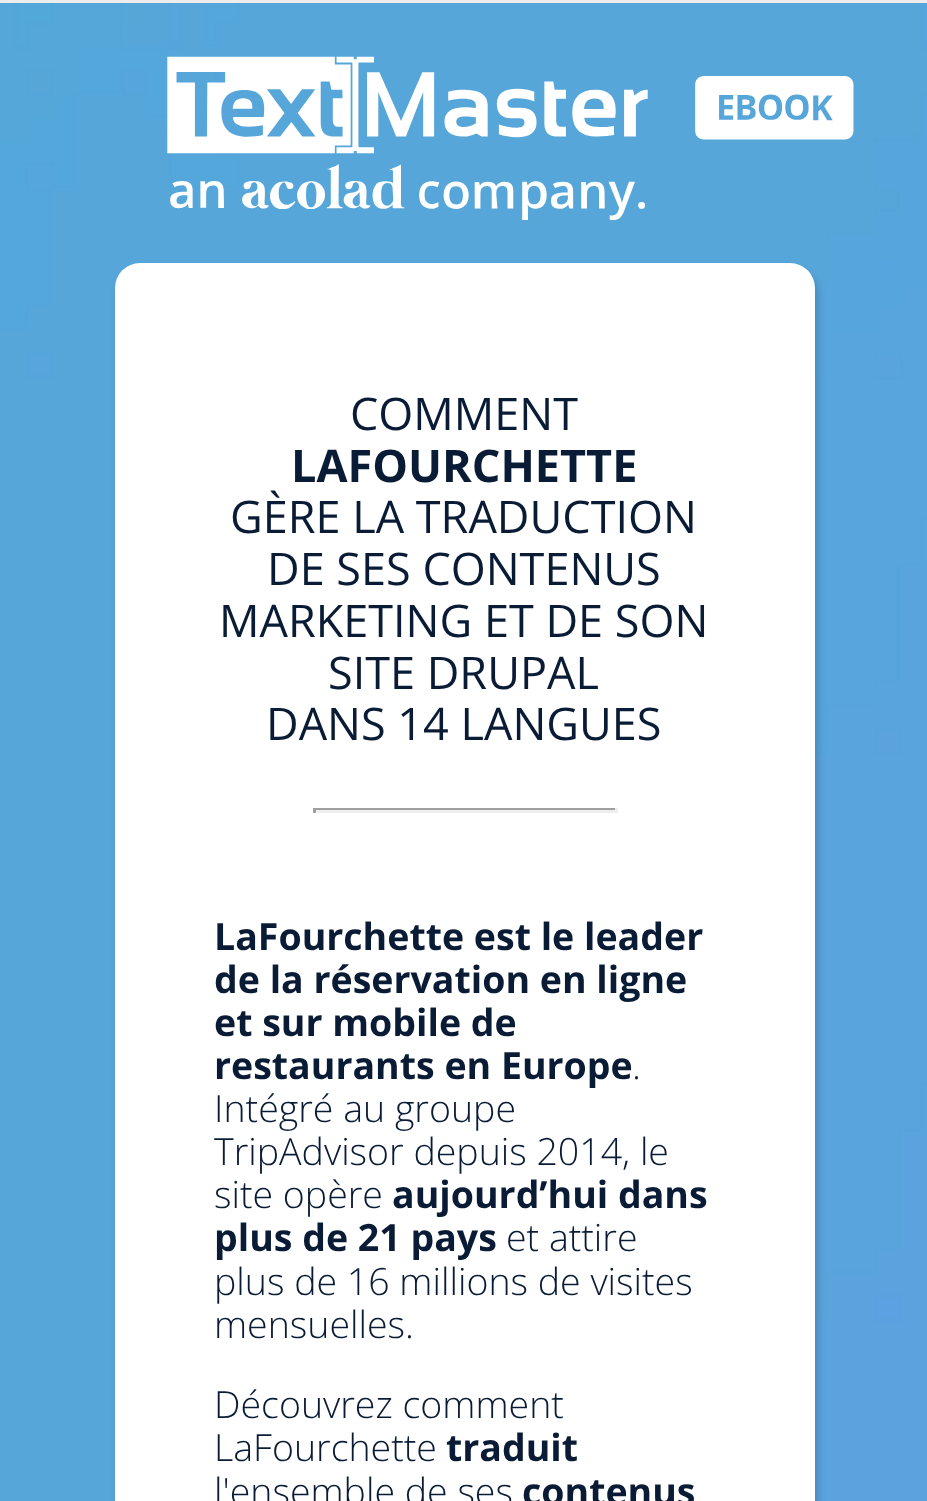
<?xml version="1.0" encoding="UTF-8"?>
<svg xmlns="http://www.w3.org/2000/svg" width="927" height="1501">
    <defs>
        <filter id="blur1" x="-50%" y="-200%" width="200%" height="500%"><feGaussianBlur stdDeviation="4"/></filter>
    </defs>
    <rect width="100%" height="100%" fill="#FFFFFF"/>
    <rect x="0" y="0" width="927" height="3" fill="#EDEDED"/>
    <image x="0" y="3" width="927" height="1498" href="img_02.png"/>
    <image x="167" y="56" width="687" height="164" href="img_01.png"/>
    <rect x="118" y="270" width="700" height="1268" rx="25" fill="#000000" fill-opacity="0.18" filter="url(#blur1)"/>
    <rect x="115" y="263" width="700" height="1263" rx="25" fill="#FFFFFF"/>
    <text x="350" y="430" font-family="Open Sans" font-size="45" fill="#0A1C35">COMMENT</text>
    <text x="291" y="482" font-family="Open Sans" font-size="45" font-weight="700" fill="#0A1C35">LAFOURCHETTE</text>
    <text x="230" y="533" font-family="Open Sans" font-size="45" fill="#0A1C35">GÈRE LA TRADUCTION</text>
    <text x="267" y="585" font-family="Open Sans" font-size="45" fill="#0A1C35">DE SES CONTENUS</text>
    <text x="219" y="637" font-family="Open Sans" font-size="45" fill="#0A1C35">MARKETING ET DE SON</text>
    <text x="328" y="689" font-family="Open Sans" font-size="45" fill="#0A1C35">SITE DRUPAL</text>
    <text x="266" y="740" font-family="Open Sans" font-size="45" fill="#0A1C35">DANS 14 LANGUES</text>
    <rect x="313" y="808" width="305" height="2" fill="#9F9F9F"/>
    <rect x="615" y="808" width="3" height="5" fill="#EEEEEE"/>
    <rect x="313" y="810" width="305" height="3" fill="#EEEEEE"/>
    <rect x="313" y="808" width="3" height="5" fill="#9F9F9F"/>
    <text font-family="Open Sans" font-size="37.5" font-weight="700" fill="#0A1C35">
        <tspan x="214" y="950">LaFourchette est le leader</tspan>
        <tspan x="214" y="993">de la réservation en ligne</tspan>
        <tspan x="214" y="1036">et sur mobile de</tspan>
        <tspan x="214" y="1079">restaurants en Europe</tspan>
    </text>
    <text x="632" y="1079" font-family="Open Sans" font-size="37.5" font-weight="300" fill="#0A1C35">.</text>
    <text font-family="Open Sans" font-size="37.5" font-weight="300" fill="#0A1C35">
        <tspan x="214" y="1122">Intégré au groupe</tspan>
        <tspan x="214" y="1165">TripAdvisor depuis 2014, le</tspan>
        <tspan x="214" y="1208">site opère</tspan>
    </text>
    <text x="392" y="1208" font-family="Open Sans" font-size="37.5" font-weight="700" fill="#0A1C35">aujourd’hui dans</text>
    <text x="214" y="1251" font-family="Open Sans" font-size="37.5" font-weight="700" fill="#0A1C35">plus de 21 pays</text>
    <text x="506" y="1251" font-family="Open Sans" font-size="37.5" font-weight="300" fill="#0A1C35">et attire</text>
    <text font-family="Open Sans" font-size="37.5" font-weight="300" fill="#0A1C35">
        <tspan x="214" y="1295">plus de 16 millions de visites</tspan>
        <tspan x="214" y="1338">mensuelles.</tspan>
    </text>
    <text font-family="Open Sans" font-size="37.5" font-weight="300" fill="#0A1C35">
        <tspan x="214" y="1418">Découvrez comment</tspan>
        <tspan x="214" y="1461">LaFourchette</tspan>
    </text>
    <text x="446" y="1461" font-family="Open Sans" font-size="37.5" font-weight="700" fill="#0A1C35">traduit</text>
    <text x="214" y="1505" font-family="Open Sans" font-size="37.5" font-weight="300" fill="#0A1C35">l'ensemble de ses</text>
    <text x="522" y="1505" font-family="Open Sans" font-size="37.5" font-weight="700" fill="#0A1C35">contenus</text>
</svg>
